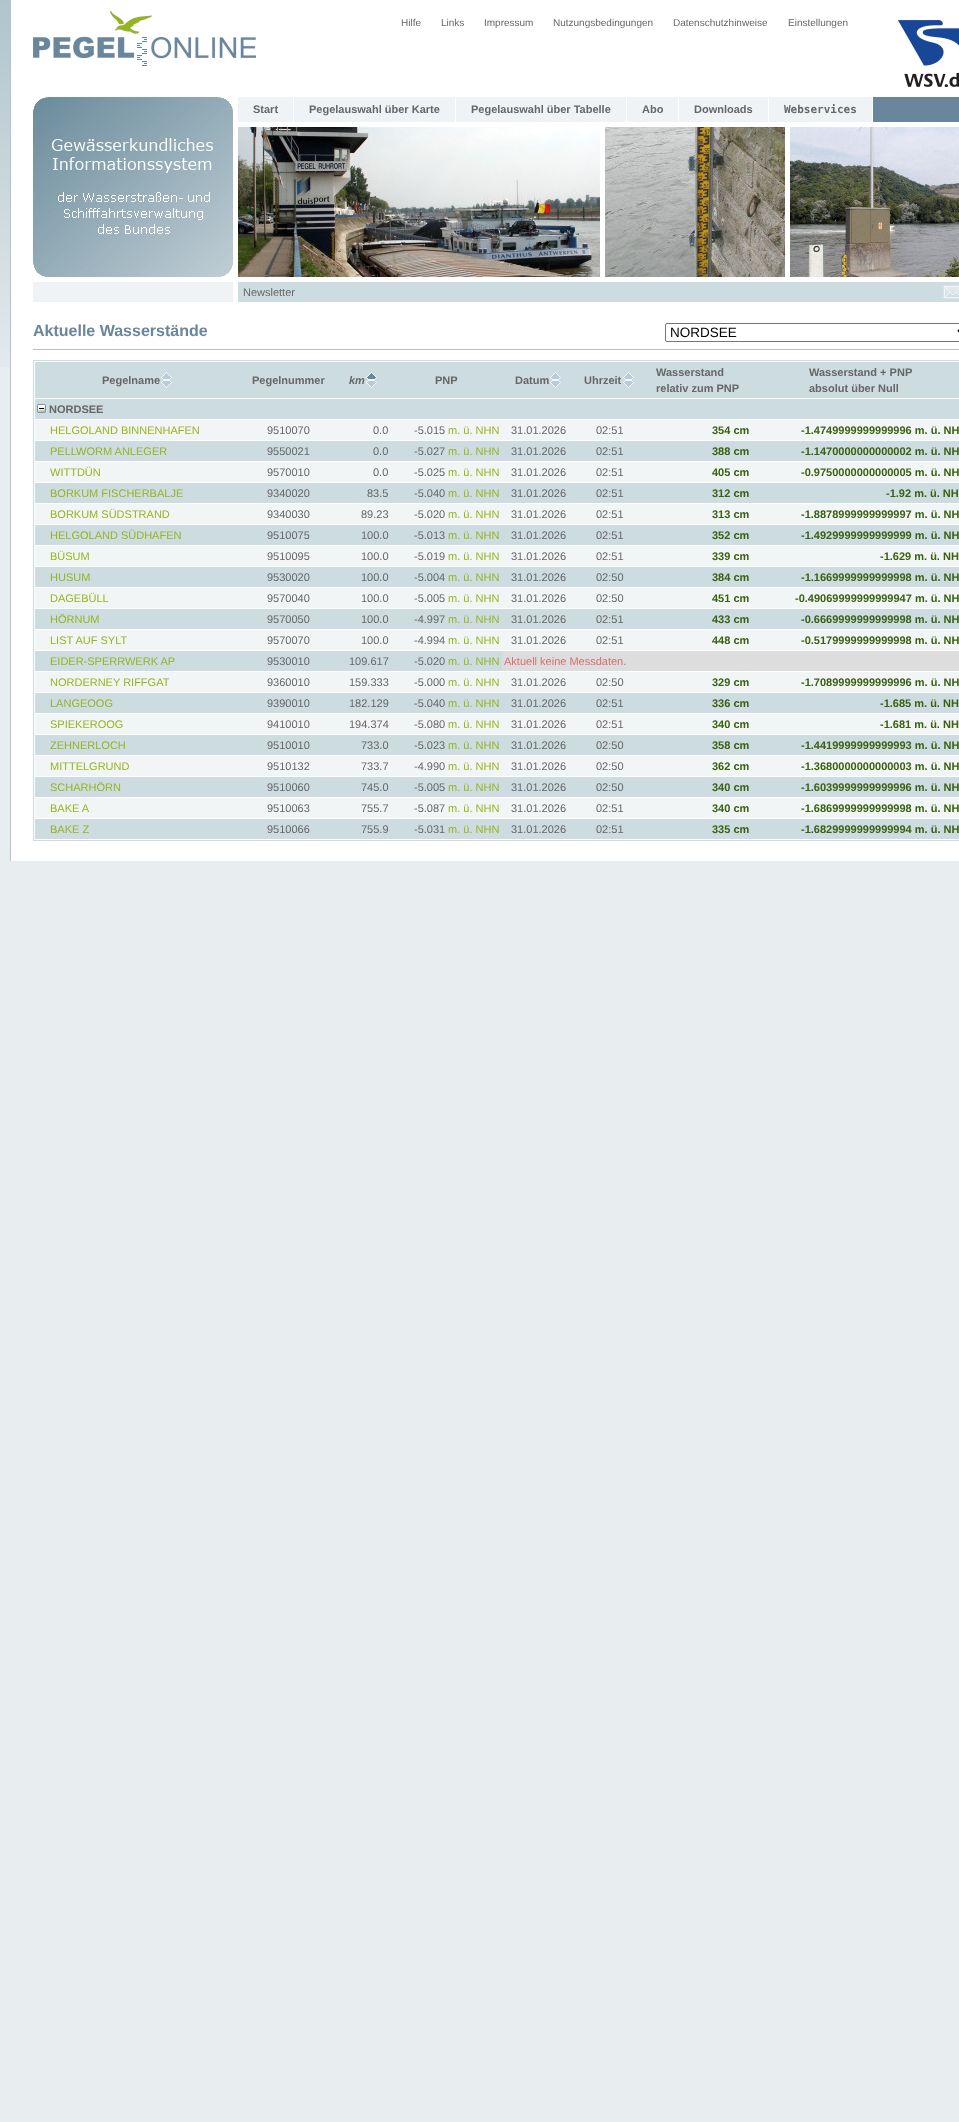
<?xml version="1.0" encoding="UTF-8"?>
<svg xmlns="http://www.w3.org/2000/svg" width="959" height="2122">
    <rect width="100%" height="100%" fill="#E8EDF0"/>
    <image x="0" y="0" width="10" height="367" href="img_01.png"/>
    <rect x="11" y="0" width="948" height="861" fill="#FFFFFF"/>
    <rect x="10" y="0" width="1" height="861" fill="#B0C4CC"/>
    <image x="33" y="10" width="224" height="65" href="img_02.png"/>
    <text x="401" y="26" font-family="Liberation Sans" font-size="10" fill="#666666">Hilfe</text>
    <text x="441" y="26" font-family="Liberation Sans" font-size="10" fill="#666666">Links</text>
    <text x="484" y="26" font-family="Liberation Sans" font-size="10" fill="#666666">Impressum</text>
    <text x="553" y="26" font-family="Liberation Sans" font-size="10" fill="#666666">Nutzungsbedingungen</text>
    <text x="673" y="26" font-family="Liberation Sans" font-size="10" fill="#666666">Datenschutzhinweise</text>
    <text x="788" y="26" font-family="Liberation Sans" font-size="10" fill="#666666">Einstellungen</text>
    <image x="898" y="20" width="61" height="67" href="img_03.png"/>
    <image x="33" y="97" width="200" height="180" href="img_04.png"/>
    <rect x="873" y="97" width="86" height="25" fill="#6A869D"/>
    <rect x="238" y="97" width="55" height="25" fill="#EFF3F5"/>
    <text x="253" y="113" font-family="Liberation Sans" font-size="11" font-weight="700" fill="#666666">Start</text>
    <rect x="294" y="97" width="161" height="25" fill="#EFF3F5"/>
    <text x="309" y="113" font-family="Liberation Sans" font-size="11" font-weight="700" fill="#666666">Pegelauswahl über Karte</text>
    <rect x="456" y="97" width="170" height="25" fill="#EFF3F5"/>
    <text x="471" y="113" font-family="Liberation Sans" font-size="11" font-weight="700" fill="#666666">Pegelauswahl über Tabelle</text>
    <rect x="627" y="97" width="51" height="25" fill="#EFF3F5"/>
    <text x="642" y="113" font-family="Liberation Sans" font-size="11" font-weight="700" fill="#666666">Abo</text>
    <rect x="679" y="97" width="89" height="25" fill="#EFF3F5"/>
    <text x="694" y="113" font-family="Liberation Sans" font-size="11" font-weight="700" fill="#666666">Downloads</text>
    <rect x="769" y="97" width="103" height="25" fill="#EFF3F5"/>
    <text x="784" y="113" font-family="DejaVu Sans Mono" font-size="11" font-weight="700" fill="#666666">Webservices</text>
    <image x="238" y="127" width="362" height="150" href="img_05.png"/>
    <image x="605" y="127" width="180" height="150" href="img_06.png"/>
    <image x="790" y="127" width="169" height="150" href="img_07.png"/>
    <rect x="33" y="282" width="200" height="20" fill="#EFF3F5"/>
    <rect x="238" y="282" width="721" height="20" fill="#CDDCE1"/>
    <text x="243" y="296" font-family="Liberation Sans" font-size="11" fill="#666666">Newsletter</text>
    <image x="943" y="285" width="16" height="14" href="img_08.png"/>
    <rect x="33" y="349" width="926" height="1" fill="#BDBDBD"/>
    <text x="33" y="336" font-family="Liberation Sans" font-size="16" font-weight="700" fill="#6A869D">Aktuelle Wasserstände</text>
    <rect x="665.5" y="323.5" width="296" height="18" rx="1.5" fill="none" stroke="#767676"/>
    <path d="M 958 330 L 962 334 L 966 330" fill="none" stroke="#000000" stroke-width="2"/>
    <text x="670" y="337" font-family="Liberation Sans" font-size="13.5" fill="#000000">NORDSEE</text>
    <rect x="33.5" y="360.5" width="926" height="480" fill="none" stroke="#CDDCE1"/>
    <rect x="35" y="362" width="924" height="36" fill="#CDDCE1"/>
    <text x="102" y="384" font-family="Liberation Sans" font-size="11" font-weight="700" fill="#666666">Pegelname</text>
    <image x="161" y="372" width="11" height="8" href="img_09.png"/>
    <image x="161" y="380" width="11" height="8" href="img_10.png"/>
    <text x="252" y="384" font-family="Liberation Sans" font-size="11" font-weight="700" fill="#666666">Pegelnummer</text>
    <text x="349" y="384" font-family="Liberation Sans" font-size="11" font-weight="700" font-style="italic" fill="#666666">km</text>
    <image x="366" y="372" width="11" height="8" href="img_11.png"/>
    <image x="366" y="380" width="11" height="8" href="img_10.png"/>
    <text x="435" y="384" font-family="Liberation Sans" font-size="11" font-weight="700" fill="#666666">PNP</text>
    <text x="515" y="384" font-family="Liberation Sans" font-size="11" font-weight="700" fill="#666666">Datum</text>
    <image x="550" y="372" width="11" height="8" href="img_09.png"/>
    <image x="550" y="380" width="11" height="8" href="img_10.png"/>
    <text x="584" y="384" font-family="Liberation Sans" font-size="11" font-weight="700" fill="#666666">Uhrzeit</text>
    <image x="623" y="372" width="11" height="8" href="img_09.png"/>
    <image x="623" y="380" width="11" height="8" href="img_10.png"/>
    <text font-family="Liberation Sans" font-size="11" font-weight="700" fill="#666666">
        <tspan x="656" y="376">Wasserstand</tspan>
        <tspan x="656" y="392">relativ zum PNP</tspan>
    </text>
    <text font-family="Liberation Sans" font-size="11" font-weight="700" fill="#666666">
        <tspan x="809" y="376">Wasserstand + PNP</tspan>
        <tspan x="809" y="392">absolut über Null</tspan>
    </text>
    <rect x="35" y="399" width="924" height="20" fill="#CDDCE1"/>
    <image x="37" y="404" width="9" height="9" href="img_12.png"/>
    <text x="49" y="413" font-family="Liberation Sans" font-size="11" font-weight="700" fill="#666666">NORDSEE</text>
    <rect x="35" y="420" width="924" height="20" fill="#F2F5F6"/>
    <text x="50" y="434" font-family="Liberation Sans" font-size="11" fill="#96B41E">HELGOLAND BINNENHAFEN</text>
    <text x="267" y="434" font-family="Liberation Sans" font-size="11" fill="#666666">9510070</text>
    <text x="373" y="434" font-family="Liberation Sans" font-size="11" fill="#666666">0.0</text>
    <text x="414" y="434" font-family="Liberation Sans" font-size="11" fill="#666666">-5.015</text>
    <text x="448" y="434" font-family="Liberation Sans" font-size="11" fill="#96B41E">m. ü. NHN</text>
    <text x="511" y="434" font-family="Liberation Sans" font-size="11" fill="#666666">31.01.2026</text>
    <text x="596" y="434" font-family="Liberation Sans" font-size="11" fill="#666666">02:51</text>
    <text x="712" y="434" font-family="Liberation Sans" font-size="11" font-weight="700" fill="#396111">354 cm</text>
    <text x="801" y="434" font-family="Liberation Sans" font-size="11" font-weight="700" fill="#396111">-1.4749999999999996 m. ü. NH</text>
    <rect x="35" y="441" width="924" height="20" fill="#CDDCE1"/>
    <text x="50" y="455" font-family="Liberation Sans" font-size="11" fill="#96B41E">PELLWORM ANLEGER</text>
    <text x="267" y="455" font-family="Liberation Sans" font-size="11" fill="#666666">9550021</text>
    <text x="373" y="455" font-family="Liberation Sans" font-size="11" fill="#666666">0.0</text>
    <text x="414" y="455" font-family="Liberation Sans" font-size="11" fill="#666666">-5.027</text>
    <text x="448" y="455" font-family="Liberation Sans" font-size="11" fill="#96B41E">m. ü. NHN</text>
    <text x="511" y="455" font-family="Liberation Sans" font-size="11" fill="#666666">31.01.2026</text>
    <text x="596" y="455" font-family="Liberation Sans" font-size="11" fill="#666666">02:51</text>
    <text x="712" y="455" font-family="Liberation Sans" font-size="11" font-weight="700" fill="#396111">388 cm</text>
    <text x="801" y="455" font-family="Liberation Sans" font-size="11" font-weight="700" fill="#396111">-1.1470000000000002 m. ü. NH</text>
    <rect x="35" y="462" width="924" height="20" fill="#F2F5F6"/>
    <text x="50" y="476" font-family="Liberation Sans" font-size="11" fill="#96B41E">WITTDÜN</text>
    <text x="267" y="476" font-family="Liberation Sans" font-size="11" fill="#666666">9570010</text>
    <text x="373" y="476" font-family="Liberation Sans" font-size="11" fill="#666666">0.0</text>
    <text x="414" y="476" font-family="Liberation Sans" font-size="11" fill="#666666">-5.025</text>
    <text x="448" y="476" font-family="Liberation Sans" font-size="11" fill="#96B41E">m. ü. NHN</text>
    <text x="511" y="476" font-family="Liberation Sans" font-size="11" fill="#666666">31.01.2026</text>
    <text x="596" y="476" font-family="Liberation Sans" font-size="11" fill="#666666">02:51</text>
    <text x="712" y="476" font-family="Liberation Sans" font-size="11" font-weight="700" fill="#396111">405 cm</text>
    <text x="801" y="476" font-family="Liberation Sans" font-size="11" font-weight="700" fill="#396111">-0.9750000000000005 m. ü. NH</text>
    <rect x="35" y="483" width="924" height="20" fill="#CDDCE1"/>
    <text x="50" y="497" font-family="Liberation Sans" font-size="11" fill="#96B41E">BORKUM FISCHERBALJE</text>
    <text x="267" y="497" font-family="Liberation Sans" font-size="11" fill="#666666">9340020</text>
    <text x="367" y="497" font-family="Liberation Sans" font-size="11" fill="#666666">83.5</text>
    <text x="414" y="497" font-family="Liberation Sans" font-size="11" fill="#666666">-5.040</text>
    <text x="448" y="497" font-family="Liberation Sans" font-size="11" fill="#96B41E">m. ü. NHN</text>
    <text x="511" y="497" font-family="Liberation Sans" font-size="11" fill="#666666">31.01.2026</text>
    <text x="596" y="497" font-family="Liberation Sans" font-size="11" fill="#666666">02:51</text>
    <text x="712" y="497" font-family="Liberation Sans" font-size="11" font-weight="700" fill="#396111">312 cm</text>
    <text x="886" y="497" font-family="Liberation Sans" font-size="11" font-weight="700" fill="#396111">-1.92 m. ü. NH</text>
    <rect x="35" y="504" width="924" height="20" fill="#F2F5F6"/>
    <text x="50" y="518" font-family="Liberation Sans" font-size="11" fill="#96B41E">BORKUM SÜDSTRAND</text>
    <text x="267" y="518" font-family="Liberation Sans" font-size="11" fill="#666666">9340030</text>
    <text x="361" y="518" font-family="Liberation Sans" font-size="11" fill="#666666">89.23</text>
    <text x="414" y="518" font-family="Liberation Sans" font-size="11" fill="#666666">-5.020</text>
    <text x="448" y="518" font-family="Liberation Sans" font-size="11" fill="#96B41E">m. ü. NHN</text>
    <text x="511" y="518" font-family="Liberation Sans" font-size="11" fill="#666666">31.01.2026</text>
    <text x="596" y="518" font-family="Liberation Sans" font-size="11" fill="#666666">02:51</text>
    <text x="712" y="518" font-family="Liberation Sans" font-size="11" font-weight="700" fill="#396111">313 cm</text>
    <text x="801" y="518" font-family="Liberation Sans" font-size="11" font-weight="700" fill="#396111">-1.8878999999999997 m. ü. NH</text>
    <rect x="35" y="525" width="924" height="20" fill="#CDDCE1"/>
    <text x="50" y="539" font-family="Liberation Sans" font-size="11" fill="#96B41E">HELGOLAND SÜDHAFEN</text>
    <text x="267" y="539" font-family="Liberation Sans" font-size="11" fill="#666666">9510075</text>
    <text x="361" y="539" font-family="Liberation Sans" font-size="11" fill="#666666">100.0</text>
    <text x="414" y="539" font-family="Liberation Sans" font-size="11" fill="#666666">-5.013</text>
    <text x="448" y="539" font-family="Liberation Sans" font-size="11" fill="#96B41E">m. ü. NHN</text>
    <text x="511" y="539" font-family="Liberation Sans" font-size="11" fill="#666666">31.01.2026</text>
    <text x="596" y="539" font-family="Liberation Sans" font-size="11" fill="#666666">02:51</text>
    <text x="712" y="539" font-family="Liberation Sans" font-size="11" font-weight="700" fill="#396111">352 cm</text>
    <text x="801" y="539" font-family="Liberation Sans" font-size="11" font-weight="700" fill="#396111">-1.4929999999999999 m. ü. NH</text>
    <rect x="35" y="546" width="924" height="20" fill="#F2F5F6"/>
    <text x="50" y="560" font-family="Liberation Sans" font-size="11" fill="#96B41E">BÜSUM</text>
    <text x="267" y="560" font-family="Liberation Sans" font-size="11" fill="#666666">9510095</text>
    <text x="361" y="560" font-family="Liberation Sans" font-size="11" fill="#666666">100.0</text>
    <text x="414" y="560" font-family="Liberation Sans" font-size="11" fill="#666666">-5.019</text>
    <text x="448" y="560" font-family="Liberation Sans" font-size="11" fill="#96B41E">m. ü. NHN</text>
    <text x="511" y="560" font-family="Liberation Sans" font-size="11" fill="#666666">31.01.2026</text>
    <text x="596" y="560" font-family="Liberation Sans" font-size="11" fill="#666666">02:51</text>
    <text x="712" y="560" font-family="Liberation Sans" font-size="11" font-weight="700" fill="#396111">339 cm</text>
    <text x="880" y="560" font-family="Liberation Sans" font-size="11" font-weight="700" fill="#396111">-1.629 m. ü. NH</text>
    <rect x="35" y="567" width="924" height="20" fill="#CDDCE1"/>
    <text x="50" y="581" font-family="Liberation Sans" font-size="11" fill="#96B41E">HUSUM</text>
    <text x="267" y="581" font-family="Liberation Sans" font-size="11" fill="#666666">9530020</text>
    <text x="361" y="581" font-family="Liberation Sans" font-size="11" fill="#666666">100.0</text>
    <text x="414" y="581" font-family="Liberation Sans" font-size="11" fill="#666666">-5.004</text>
    <text x="448" y="581" font-family="Liberation Sans" font-size="11" fill="#96B41E">m. ü. NHN</text>
    <text x="511" y="581" font-family="Liberation Sans" font-size="11" fill="#666666">31.01.2026</text>
    <text x="596" y="581" font-family="Liberation Sans" font-size="11" fill="#666666">02:50</text>
    <text x="712" y="581" font-family="Liberation Sans" font-size="11" font-weight="700" fill="#396111">384 cm</text>
    <text x="801" y="581" font-family="Liberation Sans" font-size="11" font-weight="700" fill="#396111">-1.1669999999999998 m. ü. NH</text>
    <rect x="35" y="588" width="924" height="20" fill="#F2F5F6"/>
    <text x="50" y="602" font-family="Liberation Sans" font-size="11" fill="#96B41E">DAGEBÜLL</text>
    <text x="267" y="602" font-family="Liberation Sans" font-size="11" fill="#666666">9570040</text>
    <text x="361" y="602" font-family="Liberation Sans" font-size="11" fill="#666666">100.0</text>
    <text x="414" y="602" font-family="Liberation Sans" font-size="11" fill="#666666">-5.005</text>
    <text x="448" y="602" font-family="Liberation Sans" font-size="11" fill="#96B41E">m. ü. NHN</text>
    <text x="511" y="602" font-family="Liberation Sans" font-size="11" fill="#666666">31.01.2026</text>
    <text x="596" y="602" font-family="Liberation Sans" font-size="11" fill="#666666">02:50</text>
    <text x="712" y="602" font-family="Liberation Sans" font-size="11" font-weight="700" fill="#396111">451 cm</text>
    <text x="795" y="602" font-family="Liberation Sans" font-size="11" font-weight="700" fill="#396111">-0.49069999999999947 m. ü. NH</text>
    <rect x="35" y="609" width="924" height="20" fill="#CDDCE1"/>
    <text x="50" y="623" font-family="Liberation Sans" font-size="11" fill="#96B41E">HÖRNUM</text>
    <text x="267" y="623" font-family="Liberation Sans" font-size="11" fill="#666666">9570050</text>
    <text x="361" y="623" font-family="Liberation Sans" font-size="11" fill="#666666">100.0</text>
    <text x="414" y="623" font-family="Liberation Sans" font-size="11" fill="#666666">-4.997</text>
    <text x="448" y="623" font-family="Liberation Sans" font-size="11" fill="#96B41E">m. ü. NHN</text>
    <text x="511" y="623" font-family="Liberation Sans" font-size="11" fill="#666666">31.01.2026</text>
    <text x="596" y="623" font-family="Liberation Sans" font-size="11" fill="#666666">02:51</text>
    <text x="712" y="623" font-family="Liberation Sans" font-size="11" font-weight="700" fill="#396111">433 cm</text>
    <text x="801" y="623" font-family="Liberation Sans" font-size="11" font-weight="700" fill="#396111">-0.6669999999999998 m. ü. NH</text>
    <rect x="35" y="630" width="924" height="20" fill="#F2F5F6"/>
    <text x="50" y="644" font-family="Liberation Sans" font-size="11" fill="#96B41E">LIST AUF SYLT</text>
    <text x="267" y="644" font-family="Liberation Sans" font-size="11" fill="#666666">9570070</text>
    <text x="361" y="644" font-family="Liberation Sans" font-size="11" fill="#666666">100.0</text>
    <text x="414" y="644" font-family="Liberation Sans" font-size="11" fill="#666666">-4.994</text>
    <text x="448" y="644" font-family="Liberation Sans" font-size="11" fill="#96B41E">m. ü. NHN</text>
    <text x="511" y="644" font-family="Liberation Sans" font-size="11" fill="#666666">31.01.2026</text>
    <text x="596" y="644" font-family="Liberation Sans" font-size="11" fill="#666666">02:51</text>
    <text x="712" y="644" font-family="Liberation Sans" font-size="11" font-weight="700" fill="#396111">448 cm</text>
    <text x="801" y="644" font-family="Liberation Sans" font-size="11" font-weight="700" fill="#396111">-0.5179999999999998 m. ü. NH</text>
    <rect x="35" y="651" width="467" height="20" fill="#CDDCE1"/>
    <text x="50" y="665" font-family="Liberation Sans" font-size="11" fill="#96B41E">EIDER-SPERRWERK AP</text>
    <text x="267" y="665" font-family="Liberation Sans" font-size="11" fill="#666666">9530010</text>
    <text x="349" y="665" font-family="Liberation Sans" font-size="11" fill="#666666">109.617</text>
    <text x="414" y="665" font-family="Liberation Sans" font-size="11" fill="#666666">-5.020</text>
    <text x="448" y="665" font-family="Liberation Sans" font-size="11" fill="#96B41E">m. ü. NHN</text>
    <rect x="502" y="651" width="457" height="20" fill="#DDDDDD"/>
    <text x="504" y="665" font-family="Liberation Sans" font-size="11" fill="#D66F6F">Aktuell keine Messdaten.</text>
    <rect x="35" y="672" width="924" height="20" fill="#F2F5F6"/>
    <text x="50" y="686" font-family="Liberation Sans" font-size="11" fill="#96B41E">NORDERNEY RIFFGAT</text>
    <text x="267" y="686" font-family="Liberation Sans" font-size="11" fill="#666666">9360010</text>
    <text x="349" y="686" font-family="Liberation Sans" font-size="11" fill="#666666">159.333</text>
    <text x="414" y="686" font-family="Liberation Sans" font-size="11" fill="#666666">-5.000</text>
    <text x="448" y="686" font-family="Liberation Sans" font-size="11" fill="#96B41E">m. ü. NHN</text>
    <text x="511" y="686" font-family="Liberation Sans" font-size="11" fill="#666666">31.01.2026</text>
    <text x="596" y="686" font-family="Liberation Sans" font-size="11" fill="#666666">02:50</text>
    <text x="712" y="686" font-family="Liberation Sans" font-size="11" font-weight="700" fill="#396111">329 cm</text>
    <text x="801" y="686" font-family="Liberation Sans" font-size="11" font-weight="700" fill="#396111">-1.7089999999999996 m. ü. NH</text>
    <rect x="35" y="693" width="924" height="20" fill="#CDDCE1"/>
    <text x="50" y="707" font-family="Liberation Sans" font-size="11" fill="#96B41E">LANGEOOG</text>
    <text x="267" y="707" font-family="Liberation Sans" font-size="11" fill="#666666">9390010</text>
    <text x="349" y="707" font-family="Liberation Sans" font-size="11" fill="#666666">182.129</text>
    <text x="414" y="707" font-family="Liberation Sans" font-size="11" fill="#666666">-5.040</text>
    <text x="448" y="707" font-family="Liberation Sans" font-size="11" fill="#96B41E">m. ü. NHN</text>
    <text x="511" y="707" font-family="Liberation Sans" font-size="11" fill="#666666">31.01.2026</text>
    <text x="596" y="707" font-family="Liberation Sans" font-size="11" fill="#666666">02:51</text>
    <text x="712" y="707" font-family="Liberation Sans" font-size="11" font-weight="700" fill="#396111">336 cm</text>
    <text x="880" y="707" font-family="Liberation Sans" font-size="11" font-weight="700" fill="#396111">-1.685 m. ü. NH</text>
    <rect x="35" y="714" width="924" height="20" fill="#F2F5F6"/>
    <text x="50" y="728" font-family="Liberation Sans" font-size="11" fill="#96B41E">SPIEKEROOG</text>
    <text x="267" y="728" font-family="Liberation Sans" font-size="11" fill="#666666">9410010</text>
    <text x="349" y="728" font-family="Liberation Sans" font-size="11" fill="#666666">194.374</text>
    <text x="414" y="728" font-family="Liberation Sans" font-size="11" fill="#666666">-5.080</text>
    <text x="448" y="728" font-family="Liberation Sans" font-size="11" fill="#96B41E">m. ü. NHN</text>
    <text x="511" y="728" font-family="Liberation Sans" font-size="11" fill="#666666">31.01.2026</text>
    <text x="596" y="728" font-family="Liberation Sans" font-size="11" fill="#666666">02:51</text>
    <text x="712" y="728" font-family="Liberation Sans" font-size="11" font-weight="700" fill="#396111">340 cm</text>
    <text x="880" y="728" font-family="Liberation Sans" font-size="11" font-weight="700" fill="#396111">-1.681 m. ü. NH</text>
    <rect x="35" y="735" width="924" height="20" fill="#CDDCE1"/>
    <text x="50" y="749" font-family="Liberation Sans" font-size="11" fill="#96B41E">ZEHNERLOCH</text>
    <text x="267" y="749" font-family="Liberation Sans" font-size="11" fill="#666666">9510010</text>
    <text x="361" y="749" font-family="Liberation Sans" font-size="11" fill="#666666">733.0</text>
    <text x="414" y="749" font-family="Liberation Sans" font-size="11" fill="#666666">-5.023</text>
    <text x="448" y="749" font-family="Liberation Sans" font-size="11" fill="#96B41E">m. ü. NHN</text>
    <text x="511" y="749" font-family="Liberation Sans" font-size="11" fill="#666666">31.01.2026</text>
    <text x="596" y="749" font-family="Liberation Sans" font-size="11" fill="#666666">02:50</text>
    <text x="712" y="749" font-family="Liberation Sans" font-size="11" font-weight="700" fill="#396111">358 cm</text>
    <text x="801" y="749" font-family="Liberation Sans" font-size="11" font-weight="700" fill="#396111">-1.4419999999999993 m. ü. NH</text>
    <rect x="35" y="756" width="924" height="20" fill="#F2F5F6"/>
    <text x="50" y="770" font-family="Liberation Sans" font-size="11" fill="#96B41E">MITTELGRUND</text>
    <text x="267" y="770" font-family="Liberation Sans" font-size="11" fill="#666666">9510132</text>
    <text x="361" y="770" font-family="Liberation Sans" font-size="11" fill="#666666">733.7</text>
    <text x="414" y="770" font-family="Liberation Sans" font-size="11" fill="#666666">-4.990</text>
    <text x="448" y="770" font-family="Liberation Sans" font-size="11" fill="#96B41E">m. ü. NHN</text>
    <text x="511" y="770" font-family="Liberation Sans" font-size="11" fill="#666666">31.01.2026</text>
    <text x="596" y="770" font-family="Liberation Sans" font-size="11" fill="#666666">02:50</text>
    <text x="712" y="770" font-family="Liberation Sans" font-size="11" font-weight="700" fill="#396111">362 cm</text>
    <text x="801" y="770" font-family="Liberation Sans" font-size="11" font-weight="700" fill="#396111">-1.3680000000000003 m. ü. NH</text>
    <rect x="35" y="777" width="924" height="20" fill="#CDDCE1"/>
    <text x="50" y="791" font-family="Liberation Sans" font-size="11" fill="#96B41E">SCHARHÖRN</text>
    <text x="267" y="791" font-family="Liberation Sans" font-size="11" fill="#666666">9510060</text>
    <text x="361" y="791" font-family="Liberation Sans" font-size="11" fill="#666666">745.0</text>
    <text x="414" y="791" font-family="Liberation Sans" font-size="11" fill="#666666">-5.005</text>
    <text x="448" y="791" font-family="Liberation Sans" font-size="11" fill="#96B41E">m. ü. NHN</text>
    <text x="511" y="791" font-family="Liberation Sans" font-size="11" fill="#666666">31.01.2026</text>
    <text x="596" y="791" font-family="Liberation Sans" font-size="11" fill="#666666">02:50</text>
    <text x="712" y="791" font-family="Liberation Sans" font-size="11" font-weight="700" fill="#396111">340 cm</text>
    <text x="801" y="791" font-family="Liberation Sans" font-size="11" font-weight="700" fill="#396111">-1.6039999999999996 m. ü. NH</text>
    <rect x="35" y="798" width="924" height="20" fill="#F2F5F6"/>
    <text x="50" y="812" font-family="Liberation Sans" font-size="11" fill="#96B41E">BAKE A</text>
    <text x="267" y="812" font-family="Liberation Sans" font-size="11" fill="#666666">9510063</text>
    <text x="361" y="812" font-family="Liberation Sans" font-size="11" fill="#666666">755.7</text>
    <text x="414" y="812" font-family="Liberation Sans" font-size="11" fill="#666666">-5.087</text>
    <text x="448" y="812" font-family="Liberation Sans" font-size="11" fill="#96B41E">m. ü. NHN</text>
    <text x="511" y="812" font-family="Liberation Sans" font-size="11" fill="#666666">31.01.2026</text>
    <text x="596" y="812" font-family="Liberation Sans" font-size="11" fill="#666666">02:51</text>
    <text x="712" y="812" font-family="Liberation Sans" font-size="11" font-weight="700" fill="#396111">340 cm</text>
    <text x="801" y="812" font-family="Liberation Sans" font-size="11" font-weight="700" fill="#396111">-1.6869999999999998 m. ü. NH</text>
    <rect x="35" y="819" width="924" height="20" fill="#CDDCE1"/>
    <text x="50" y="833" font-family="Liberation Sans" font-size="11" fill="#96B41E">BAKE Z</text>
    <text x="267" y="833" font-family="Liberation Sans" font-size="11" fill="#666666">9510066</text>
    <text x="361" y="833" font-family="Liberation Sans" font-size="11" fill="#666666">755.9</text>
    <text x="414" y="833" font-family="Liberation Sans" font-size="11" fill="#666666">-5.031</text>
    <text x="448" y="833" font-family="Liberation Sans" font-size="11" fill="#96B41E">m. ü. NHN</text>
    <text x="511" y="833" font-family="Liberation Sans" font-size="11" fill="#666666">31.01.2026</text>
    <text x="596" y="833" font-family="Liberation Sans" font-size="11" fill="#666666">02:51</text>
    <text x="712" y="833" font-family="Liberation Sans" font-size="11" font-weight="700" fill="#396111">335 cm</text>
    <text x="801" y="833" font-family="Liberation Sans" font-size="11" font-weight="700" fill="#396111">-1.6829999999999994 m. ü. NH</text>
</svg>
